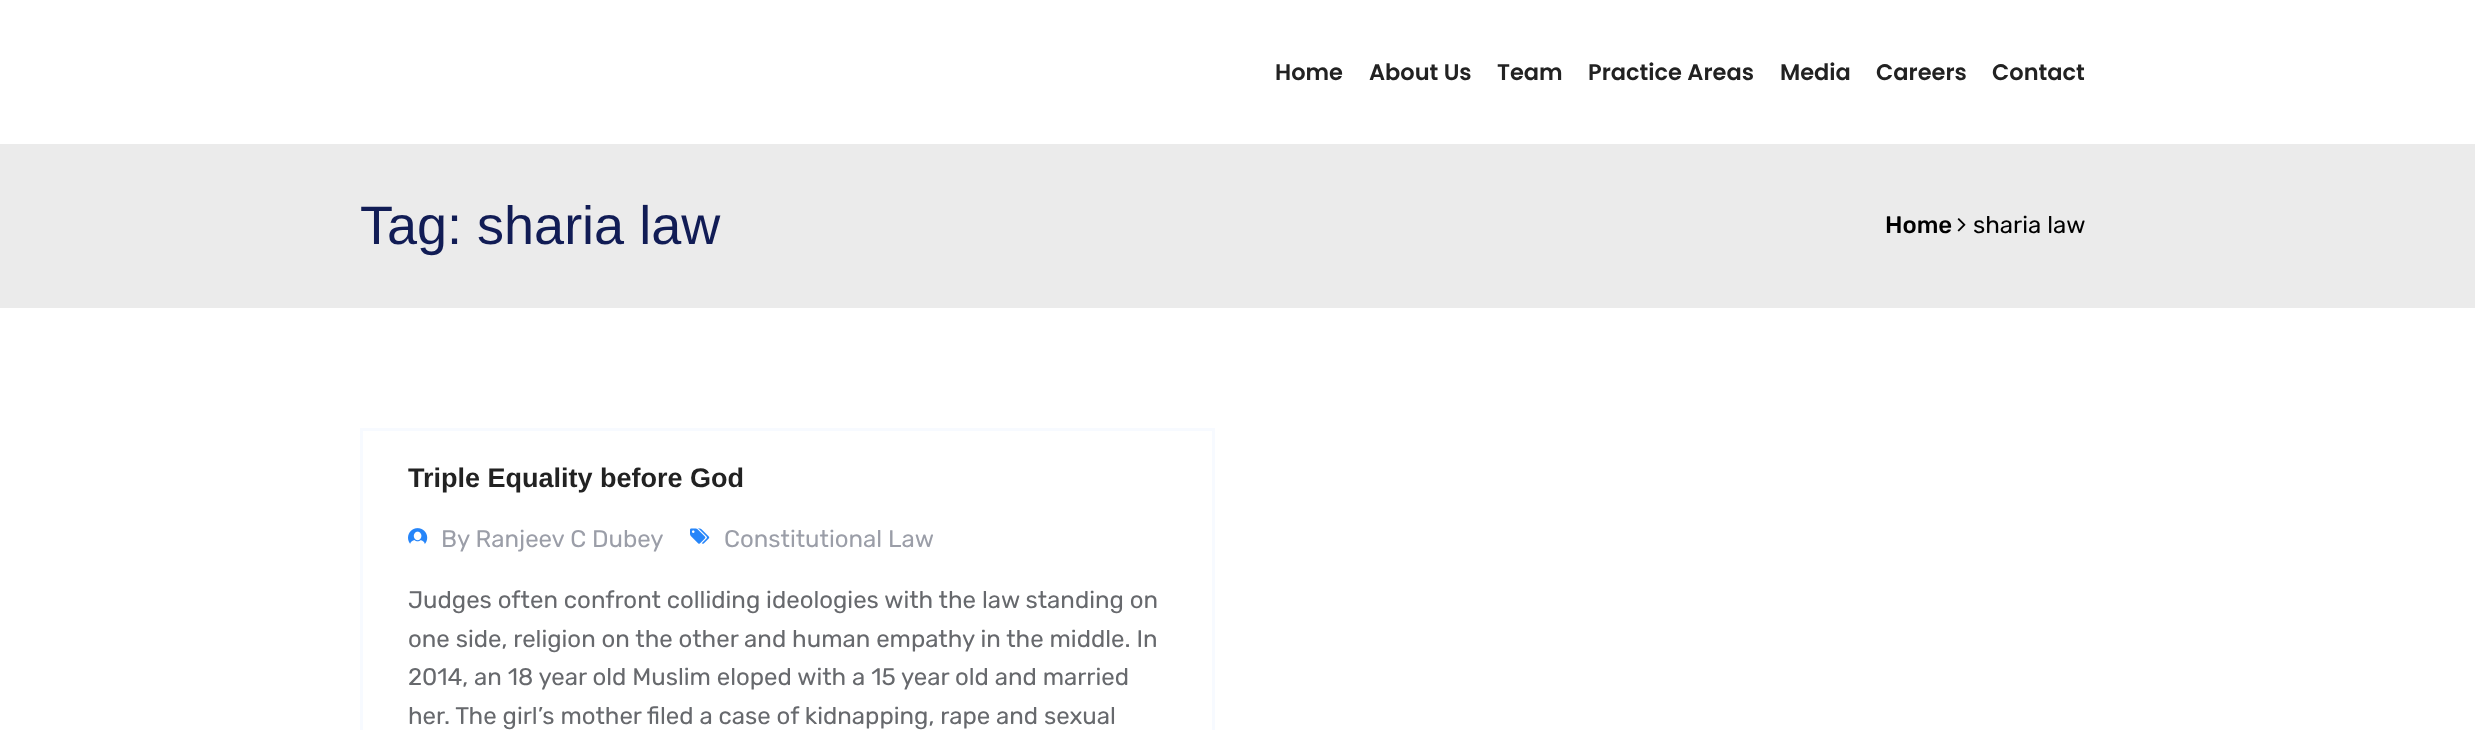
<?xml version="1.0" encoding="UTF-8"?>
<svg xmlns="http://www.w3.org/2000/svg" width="2475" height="730">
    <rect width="100%" height="100%" fill="#FFFFFF"/>
    <text x="1275" y="80" font-family="Poppins" font-size="22.5" font-weight="600" fill="#222222">Home</text>
    <text x="1369" y="80" font-family="Poppins" font-size="22.5" font-weight="600" fill="#222222">About Us</text>
    <text x="1497" y="80" font-family="Poppins" font-size="22.5" font-weight="600" fill="#222222">Team</text>
    <text x="1588" y="80" font-family="Poppins" font-size="22.5" font-weight="600" fill="#222222">Practice Areas</text>
    <text x="1780" y="80" font-family="Poppins" font-size="22.5" font-weight="600" fill="#222222">Media</text>
    <text x="1876" y="80" font-family="Poppins" font-size="22.5" font-weight="600" fill="#222222">Careers</text>
    <text x="1992" y="80" font-family="Poppins" font-size="22.5" font-weight="600" fill="#222222">Contact</text>
    <rect x="0" y="144" width="2475" height="164" fill="#EBEBEB"/>
    <text x="360" y="244" font-family="Liberation Sans" font-size="54" fill="#111C55">Tag: sharia law</text>
    <text x="1885" y="233" font-family="Rubik" font-size="24" font-weight="500" fill="#000000">Home</text>
    <image x="1957" y="218" width="9" height="14" href="img_01.png"/>
    <text x="1973" y="233" font-family="Rubik" font-size="24" fill="#000000">sharia law</text>
    <rect x="361.5" y="429.5" width="852" height="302" fill="none" stroke="#F7FAFF" stroke-width="3"/>
    <text x="408" y="487" font-family="Liberation Sans" font-size="27" font-weight="700" fill="#222222">Triple Equality before God</text>
    <image x="408" y="528" width="20" height="16" href="img_02.png"/>
    <text x="441" y="547" font-family="Rubik" font-size="24" fill="#9B9EA8">By Ranjeev C Dubey</text>
    <image x="690" y="528" width="20" height="16" href="img_03.png"/>
    <text x="724" y="547" font-family="Rubik" font-size="24" fill="#9B9EA8">Constitutional Law</text>
    <text font-family="Rubik" font-size="24" fill="#67696D">
        <tspan x="408" y="608">Judges often confront colliding ideologies with the law standing on</tspan>
        <tspan x="408" y="647">one side, religion on the other and human empathy in the middle. In</tspan>
        <tspan x="408" y="685">2014, an 18 year old Muslim eloped with a 15 year old and married</tspan>
        <tspan x="408" y="724">her. The girl’s mother filed a case of kidnapping, rape and sexual</tspan>
    </text>
</svg>
